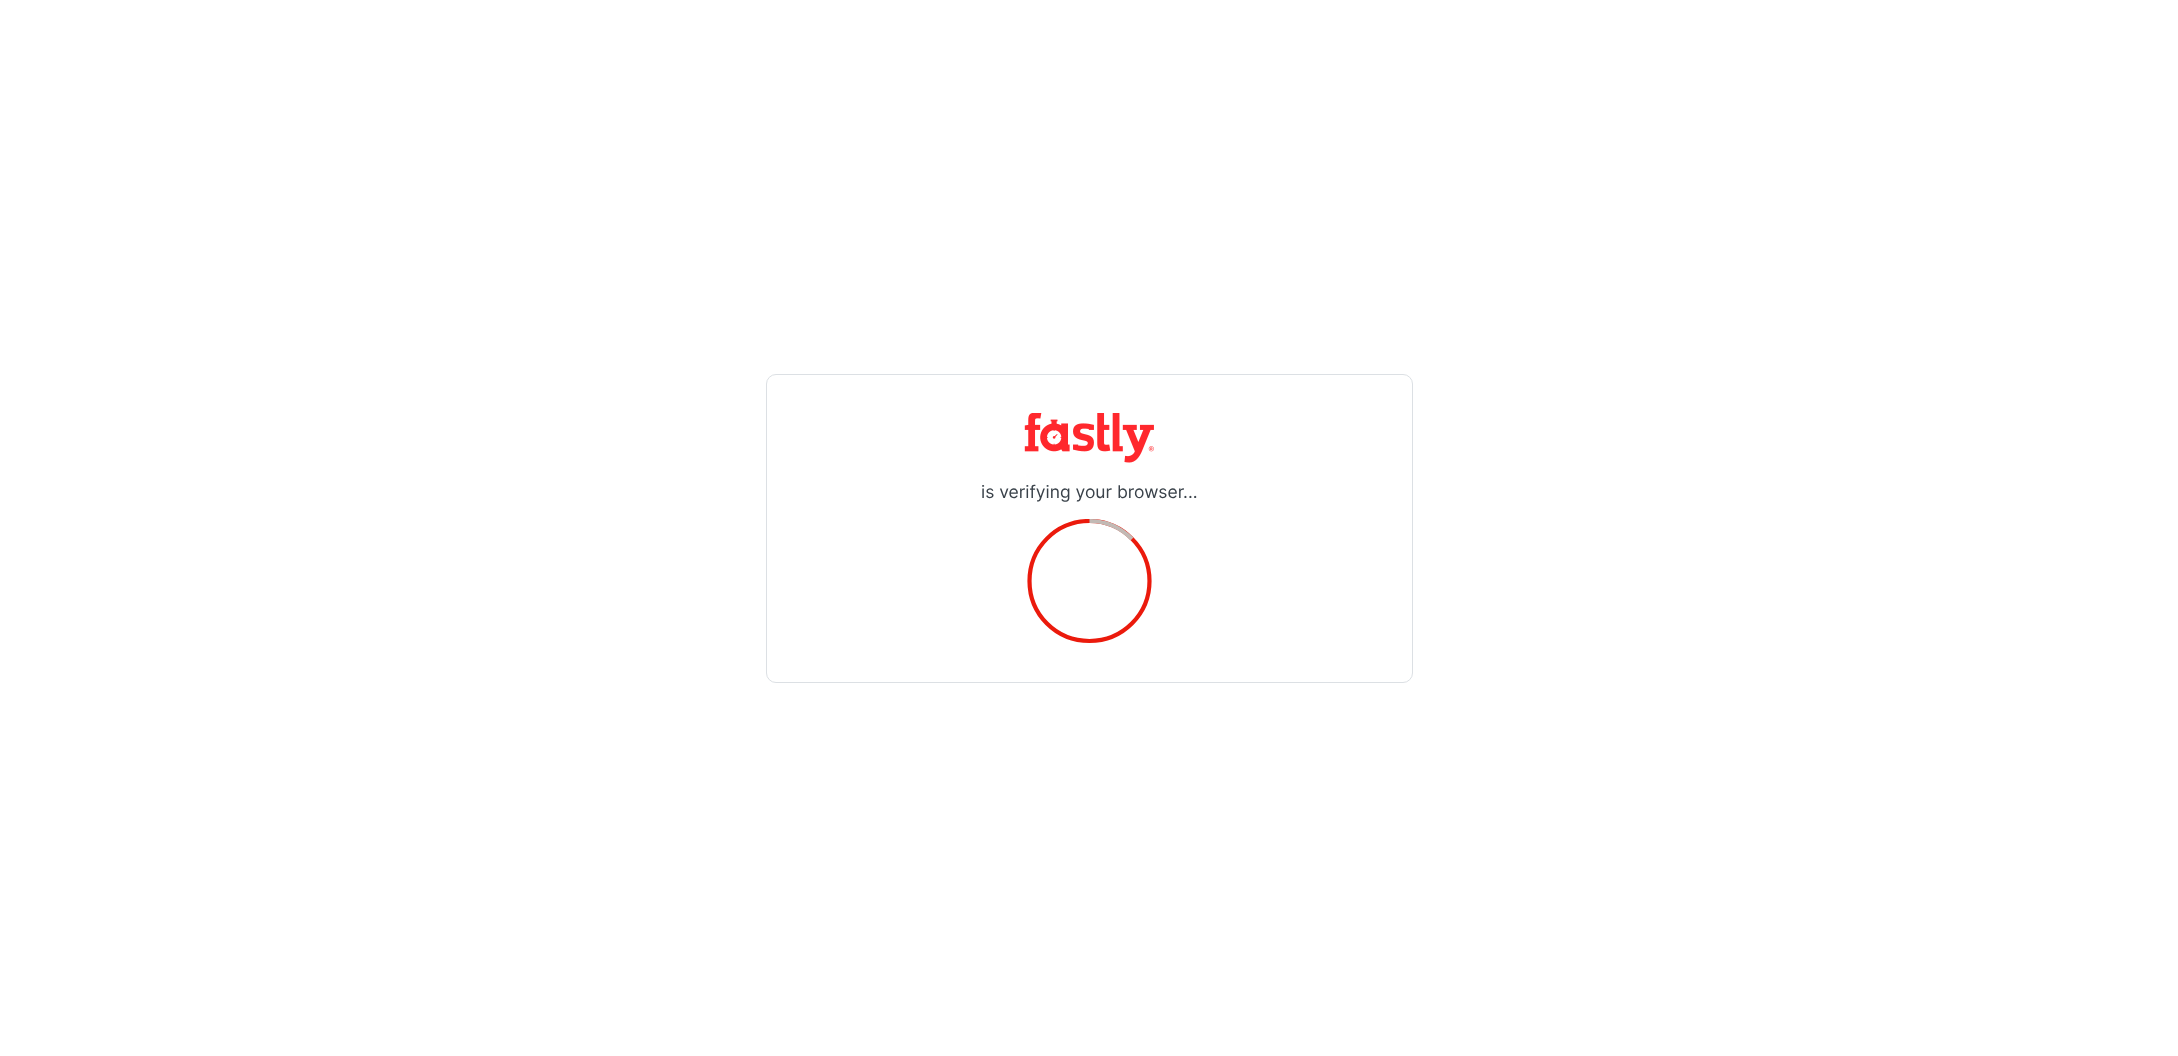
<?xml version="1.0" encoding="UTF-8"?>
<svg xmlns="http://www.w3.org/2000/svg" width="2178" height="1056">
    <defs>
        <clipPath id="clip1"><rect x="805" y="519" width="569" height="125"/></clipPath>
    </defs>
    <rect width="100%" height="100%" fill="#FFFFFF"/>
    <rect x="766.5" y="374.5" width="646" height="308" rx="9.5" fill="none" stroke="#DCE0E4"/>
    <image x="1024" y="413" width="130" height="50" href="img_01.png"/>
    <text x="981" y="498" font-family="Inter" font-size="17.5" fill="#3A424A">is verifying your browser...</text>
    <g clip-path="url(#clip1)">
        <path d="M 1029.5 581 C 1029.5 548 1056 521 1089.5 521 C 1122.5 521 1149.5 548 1149.5 581 C 1149.5 614.5 1122.5 641 1089.5 641 C 1056 641 1029.5 614.5 1029.5 581 Z" fill="none" stroke="#EB1A0C" stroke-width="4.2"/>
    </g>
    <path d="M 1132 539 C 1120.5 527.5 1105.5 521 1089.5 521" fill="none" stroke="#C2BAB5" stroke-width="4.2"/>
</svg>
